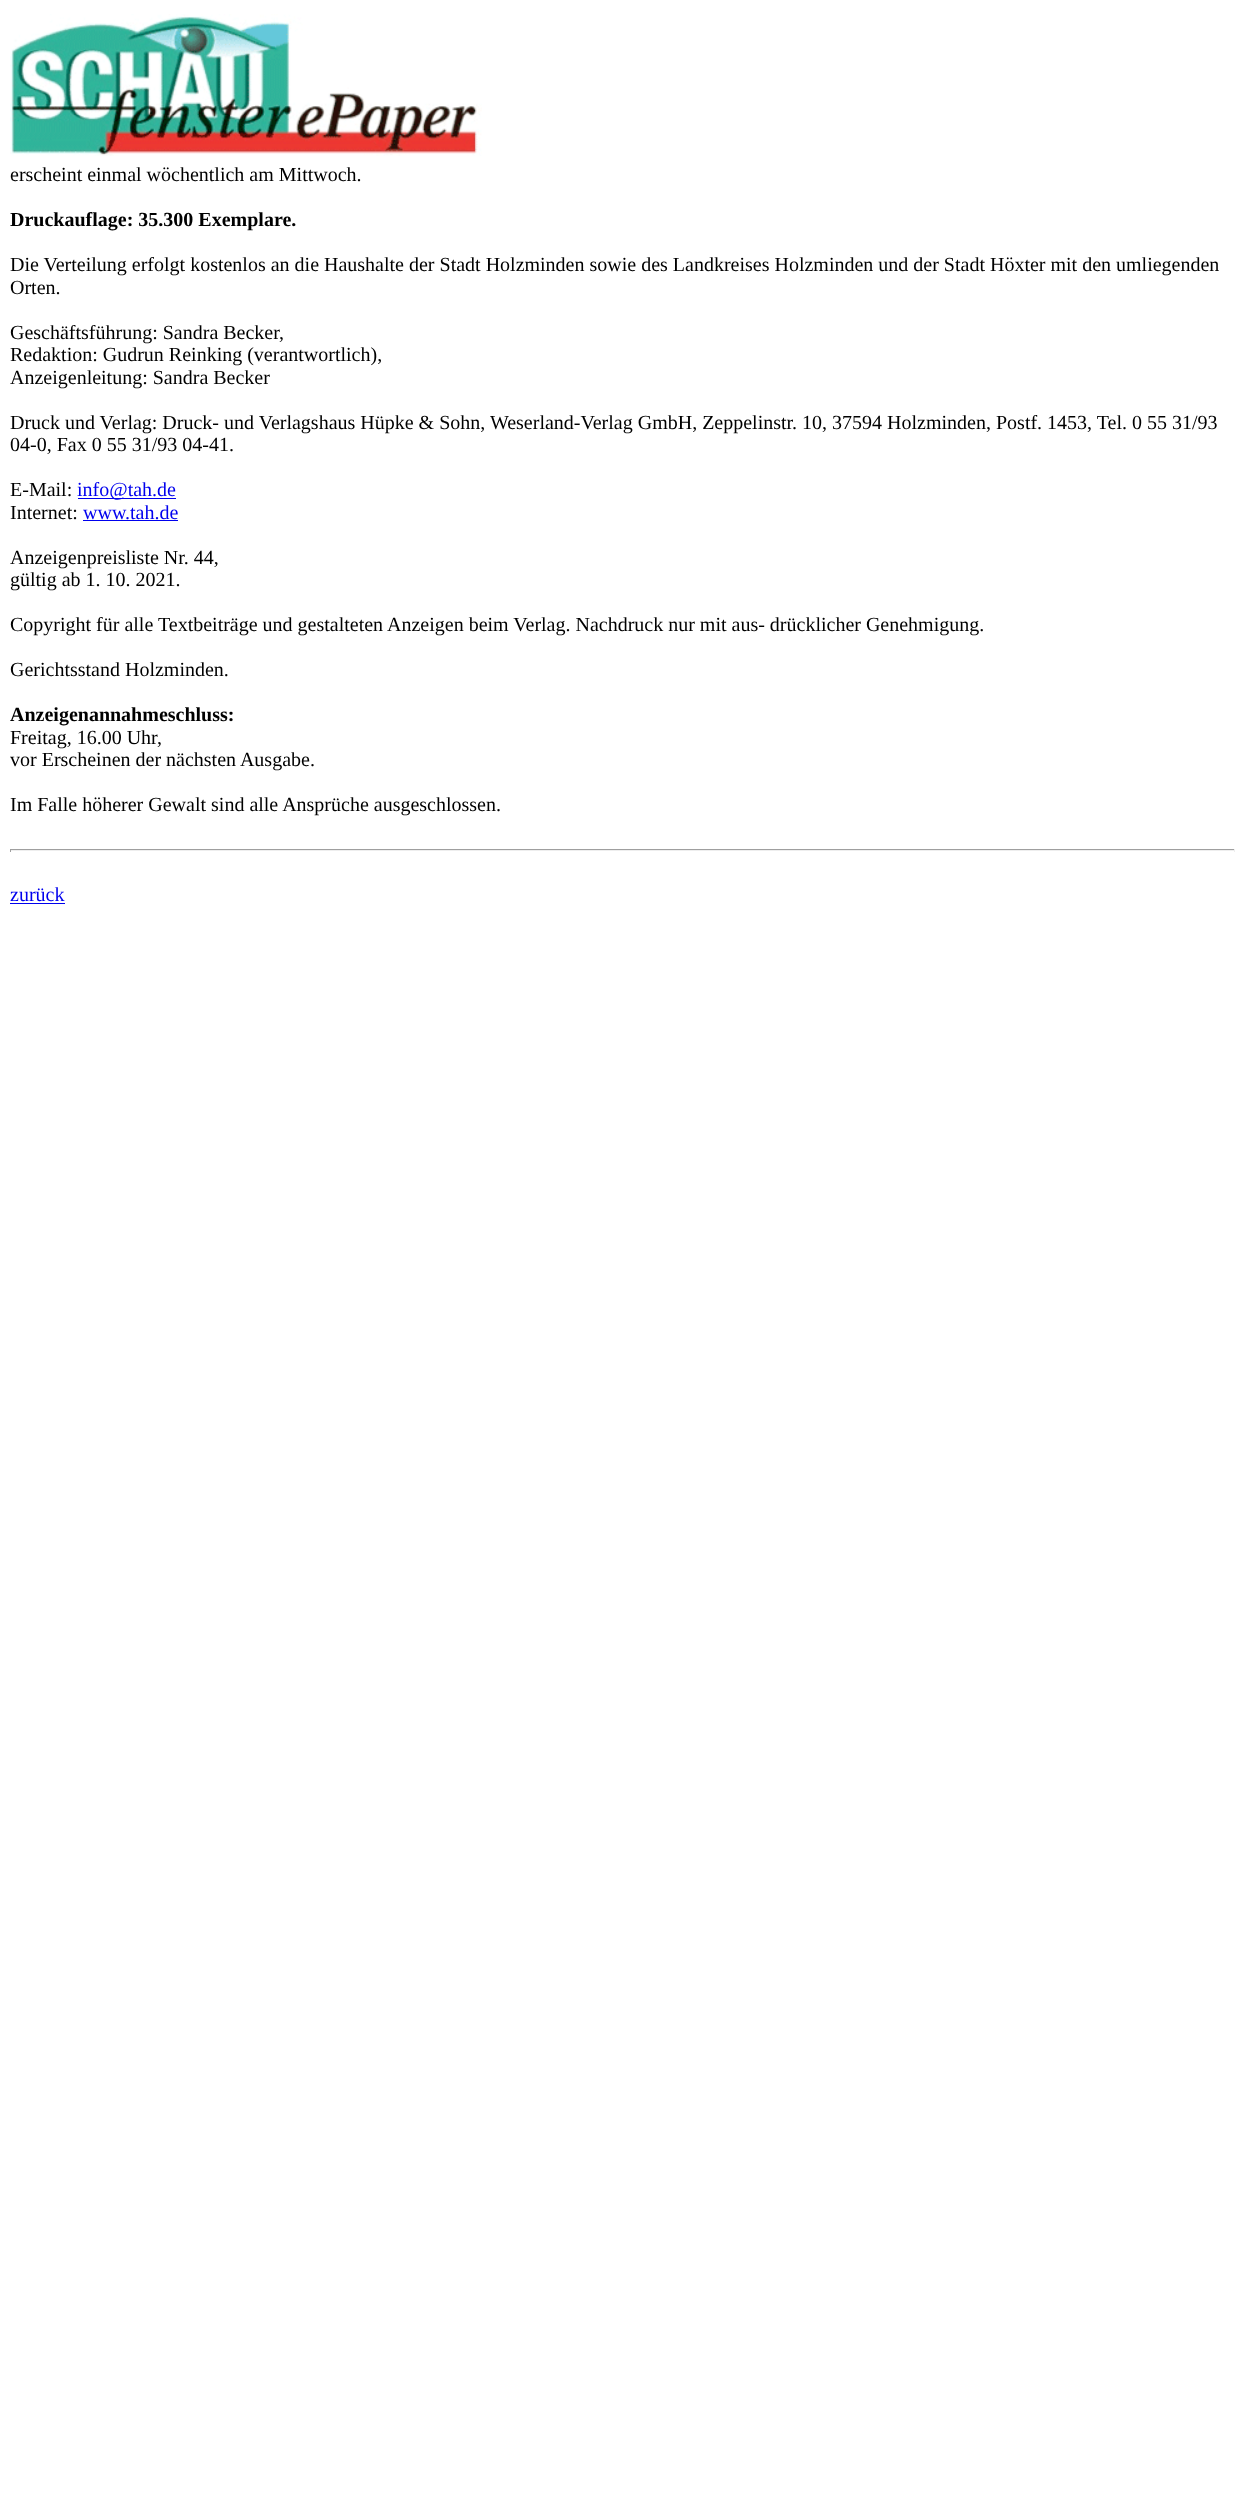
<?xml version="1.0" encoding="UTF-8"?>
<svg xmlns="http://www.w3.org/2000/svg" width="1244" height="2515">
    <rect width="100%" height="100%" fill="#FFFFFF"/>
    <image x="10" y="14" width="472" height="142" href="img_01.png"/>
    <text x="10" y="181" font-family="Liberation Serif" font-size="20" fill="#000000">erscheint einmal wöchentlich am Mittwoch.</text>
    <text x="10" y="226" font-family="Liberation Serif" font-size="20" font-weight="700" fill="#000000">Druckauflage: 35.300 Exemplare.</text>
    <text font-family="Liberation Serif" font-size="20" fill="#000000">
        <tspan x="10" y="271">Die Verteilung erfolgt kostenlos an die Haushalte der Stadt Holzminden sowie des Landkreises Holzminden und der Stadt Höxter mit den umliegenden</tspan>
        <tspan x="10" y="294">Orten.</tspan>
    </text>
    <text font-family="Liberation Serif" font-size="20" fill="#000000">
        <tspan x="10" y="339">Geschäftsführung: Sandra Becker,</tspan>
        <tspan x="10" y="361">Redaktion: Gudrun Reinking (verantwortlich),</tspan>
        <tspan x="10" y="384">Anzeigenleitung: Sandra Becker</tspan>
    </text>
    <text font-family="Liberation Serif" font-size="20" fill="#000000">
        <tspan x="10" y="429">Druck und Verlag: Druck- und Verlagshaus Hüpke &amp; Sohn, Weserland-Verlag GmbH, Zeppelinstr. 10, 37594 Holzminden, Postf. 1453, Tel. 0 55 31/93</tspan>
        <tspan x="10" y="451">04-0, Fax 0 55 31/93 04-41.</tspan>
    </text>
    <text x="10" y="496" font-family="Liberation Serif" font-size="20" fill="#000000">E-Mail:</text>
    <rect x="78" y="498" width="98" height="1" fill="#0000EE"/>
    <text x="77" y="496" font-family="Liberation Serif" font-size="20" fill="#0000EE">info@tah.de</text>
    <text x="10" y="519" font-family="Liberation Serif" font-size="20" fill="#000000">Internet:</text>
    <text x="83" y="519" font-family="Liberation Serif" font-size="20" fill="#0000EE">www.tah.de</text>
    <rect x="83" y="520" width="95" height="1" fill="#0000EE"/>
    <text font-family="Liberation Serif" font-size="20" fill="#000000">
        <tspan x="10" y="564">Anzeigenpreisliste Nr. 44,</tspan>
        <tspan x="10" y="586">gültig ab 1. 10. 2021.</tspan>
    </text>
    <text x="10" y="631" font-family="Liberation Serif" font-size="20" fill="#000000">Copyright für alle Textbeiträge und gestalteten Anzeigen beim Verlag. Nachdruck nur mit aus- drücklicher Genehmigung.</text>
    <text x="10" y="676" font-family="Liberation Serif" font-size="20" fill="#000000">Gerichtsstand Holzminden.</text>
    <text x="10" y="721" font-family="Liberation Serif" font-size="20" font-weight="700" fill="#000000">Anzeigenannahmeschluss:</text>
    <text font-family="Liberation Serif" font-size="20" fill="#000000">
        <tspan x="10" y="744">Freitag, 16.00 Uhr,</tspan>
        <tspan x="10" y="766">vor Erscheinen der nächsten Ausgabe.</tspan>
    </text>
    <text x="10" y="811" font-family="Liberation Serif" font-size="20" fill="#000000">Im Falle höherer Gewalt sind alle Ansprüche ausgeschlossen.</text>
    <rect x="10" y="849" width="1225" height="1" fill="#9F9F9F"/>
    <rect x="1234" y="849" width="1" height="3" fill="#EEEEEE"/>
    <rect x="10" y="850" width="1225" height="1" fill="#EEEEEE"/>
    <rect x="10" y="849" width="1" height="3" fill="#9F9F9F"/>
    <text x="10" y="901" font-family="Liberation Serif" font-size="20" fill="#0000EE">zurück</text>
    <rect x="10" y="903" width="55" height="1" fill="#0000EE"/>
</svg>
